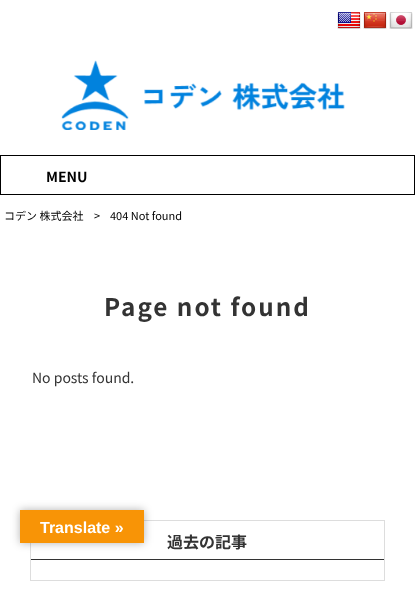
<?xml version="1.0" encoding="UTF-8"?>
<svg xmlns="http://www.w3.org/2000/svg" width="415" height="601">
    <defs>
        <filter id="blur1" x="-50%" y="-200%" width="200%" height="500%"><feGaussianBlur stdDeviation="4.5"/></filter>
    </defs>
    <rect width="100%" height="100%" fill="#FFFFFF"/>
    <image x="337" y="12" width="24" height="17" href="img_01.png"/>
    <image x="363" y="12" width="24" height="17" href="img_02.png"/>
    <image x="389" y="12" width="24" height="17" href="img_03.png"/>
    <image x="61" y="60" width="284" height="70" href="img_04.png"/>
    <rect x="0.5" y="155.5" width="414" height="39" fill="none" stroke="#000000"/>
    <text x="46" y="182" font-family="Noto Sans JP" font-size="14" font-weight="700" fill="#000000">MENU</text>
    <text x="4" y="220" font-family="Noto Sans JP" font-size="11" fill="#000000">コデン 株式会社</text>
    <text x="94" y="220" font-family="Noto Sans JP" font-size="11" fill="#000000">&gt;</text>
    <text x="110" y="220" font-family="Noto Sans JP" font-size="11" fill="#000000">404 Not found</text>
    <text x="104" y="316" font-family="Noto Sans JP" font-size="24.25" font-weight="700" letter-spacing="2" fill="#333333">Page not found</text>
    <text x="32" y="383" font-family="Noto Sans JP" font-size="14" fill="#333333">No posts found.</text>
    <rect x="30.5" y="520.5" width="354" height="60" fill="none" stroke="#DDDDDD"/>
    <rect x="31" y="559" width="353" height="1" fill="#333333"/>
    <text x="167" y="548" font-family="Noto Sans JP" font-size="16" font-weight="700" fill="#333333">過去の記事</text>
    <rect x="20" y="510" width="124" height="33" fill="#000000" fill-opacity="0.3" filter="url(#blur1)"/>
    <rect x="20" y="510" width="124" height="33" fill="#F89406"/>
    <text x="40" y="533" font-family="Liberation Sans" font-size="16" font-weight="700" fill="#FFFFFF">Translate »</text>
</svg>
